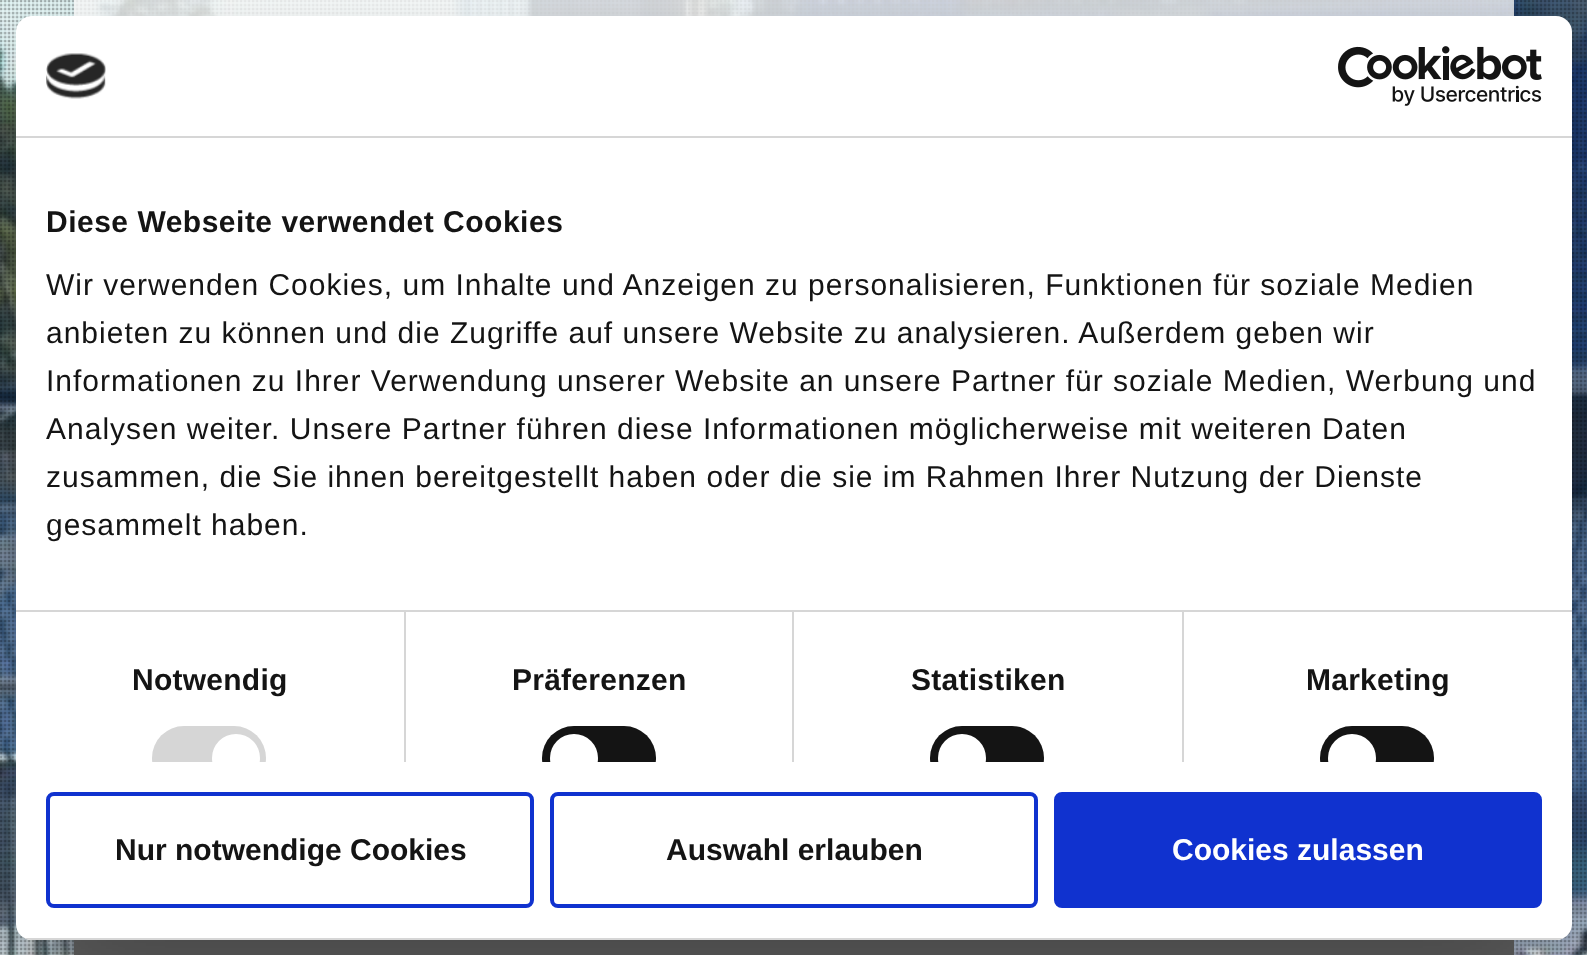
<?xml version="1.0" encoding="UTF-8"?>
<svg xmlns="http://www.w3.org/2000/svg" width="1587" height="955">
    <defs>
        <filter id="blur1" x="-50%" y="-200%" width="200%" height="500%"><feGaussianBlur stdDeviation="68"/></filter>
        <clipPath id="clip1"><rect x="16" y="138" width="1556" height="624"/></clipPath>
        <clipPath id="clip2"><rect x="16" y="16" width="1556" height="924" rx="16"/></clipPath>
    </defs>
    <rect width="100%" height="100%" fill="#FFFFFF"/>
    <image x="0" y="0" width="1587" height="955" href="img_01.png"/>
    <image x="0" y="0" width="1587" height="955" href="img_02.png"/>
    <rect x="74" y="0" width="1440" height="16" fill="#FFFFFF" fill-opacity="0.8"/>
    <rect x="74" y="940" width="1440" height="15" fill="#666666"/>
    <rect x="16" y="80" width="1556" height="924" rx="16" fill="#000000" fill-opacity="0.3" filter="url(#blur1)"/>
    <rect x="16" y="16" width="1556" height="924" rx="16" fill="#FFFFFF"/>
    <rect x="16" y="136" width="1556" height="2" fill="#D6D6D6"/>
    <image x="46" y="53" width="60" height="46" href="img_03.png"/>
    <image x="1338" y="46" width="204" height="60" href="img_04.png"/>
    <rect x="16" y="610" width="1556" height="2" fill="#D6D6D6"/>
    <text x="46" y="232" font-family="Liberation Sans" font-size="30" font-weight="700" letter-spacing="0.5" fill="#141414">Diese Webseite verwendet Cookies</text>
    <text font-family="Liberation Sans" font-size="30" letter-spacing="1" fill="#141414">
        <tspan x="46" y="295">Wir verwenden Cookies, um Inhalte und Anzeigen zu personalisieren, Funktionen für soziale Medien</tspan>
        <tspan x="46" y="343">anbieten zu können und die Zugriffe auf unsere Website zu analysieren. Außerdem geben wir</tspan>
        <tspan x="46" y="391">Informationen zu Ihrer Verwendung unserer Website an unsere Partner für soziale Medien, Werbung und</tspan>
        <tspan x="46" y="439">Analysen weiter. Unsere Partner führen diese Informationen möglicherweise mit weiteren Daten</tspan>
        <tspan x="46" y="487">zusammen, die Sie ihnen bereitgestellt haben oder die sie im Rahmen Ihrer Nutzung der Dienste</tspan>
        <tspan x="46" y="535">gesammelt haben.</tspan>
    </text>
    <rect x="404" y="612" width="2" height="150" fill="#D6D6D6"/>
    <text x="132" y="690" font-family="Liberation Sans" font-size="30" font-weight="700" letter-spacing="0.25" fill="#141414">Notwendig</text>
    <g clip-path="url(#clip1)">
        <rect x="152" y="726" width="114" height="64" rx="32" fill="#D6D6D6"/>
        <circle cx="236" cy="758" r="24" fill="#FFFFFF"/>
    </g>
    <rect x="792" y="612" width="2" height="150" fill="#D6D6D6"/>
    <text x="512" y="690" font-family="Liberation Sans" font-size="30" font-weight="700" letter-spacing="0.25" fill="#141414">Präferenzen</text>
    <g clip-path="url(#clip1)">
        <rect x="542" y="726" width="114" height="64" rx="32" fill="#141414"/>
        <circle cx="574" cy="758" r="24" fill="#FFFFFF"/>
    </g>
    <rect x="1182" y="612" width="2" height="150" fill="#D6D6D6"/>
    <text x="911" y="690" font-family="Liberation Sans" font-size="30" font-weight="700" letter-spacing="0.25" fill="#141414">Statistiken</text>
    <g clip-path="url(#clip1)">
        <rect x="930" y="726" width="114" height="64" rx="32" fill="#141414"/>
        <circle cx="962" cy="758" r="24" fill="#FFFFFF"/>
    </g>
    <text x="1306" y="690" font-family="Liberation Sans" font-size="30" font-weight="700" letter-spacing="0.25" fill="#141414">Marketing</text>
    <g clip-path="url(#clip1)">
        <rect x="1320" y="726" width="114" height="64" rx="32" fill="#141414"/>
        <circle cx="1352" cy="758" r="24" fill="#FFFFFF"/>
    </g>
    <g clip-path="url(#clip2)">
        <rect x="16" y="938" width="1556" height="2" fill="#D6D6D6"/>
    </g>
    <rect x="48" y="794" width="484" height="112" rx="6" fill="none" stroke="#1032CF" stroke-width="4"/>
    <text x="115" y="860" font-family="Liberation Sans" font-size="30" font-weight="700" fill="#141414">Nur notwendige Cookies</text>
    <rect x="552" y="794" width="484" height="112" rx="6" fill="none" stroke="#1032CF" stroke-width="4"/>
    <text x="666" y="860" font-family="Liberation Sans" font-size="30" font-weight="700" fill="#141414">Auswahl erlauben</text>
    <rect x="1056" y="794" width="484" height="112" rx="6" fill="#1032CF" stroke="#1032CF" stroke-width="4"/>
    <text x="1172" y="860" font-family="Liberation Sans" font-size="30" font-weight="700" fill="#FFFFFF">Cookies zulassen</text>
</svg>
